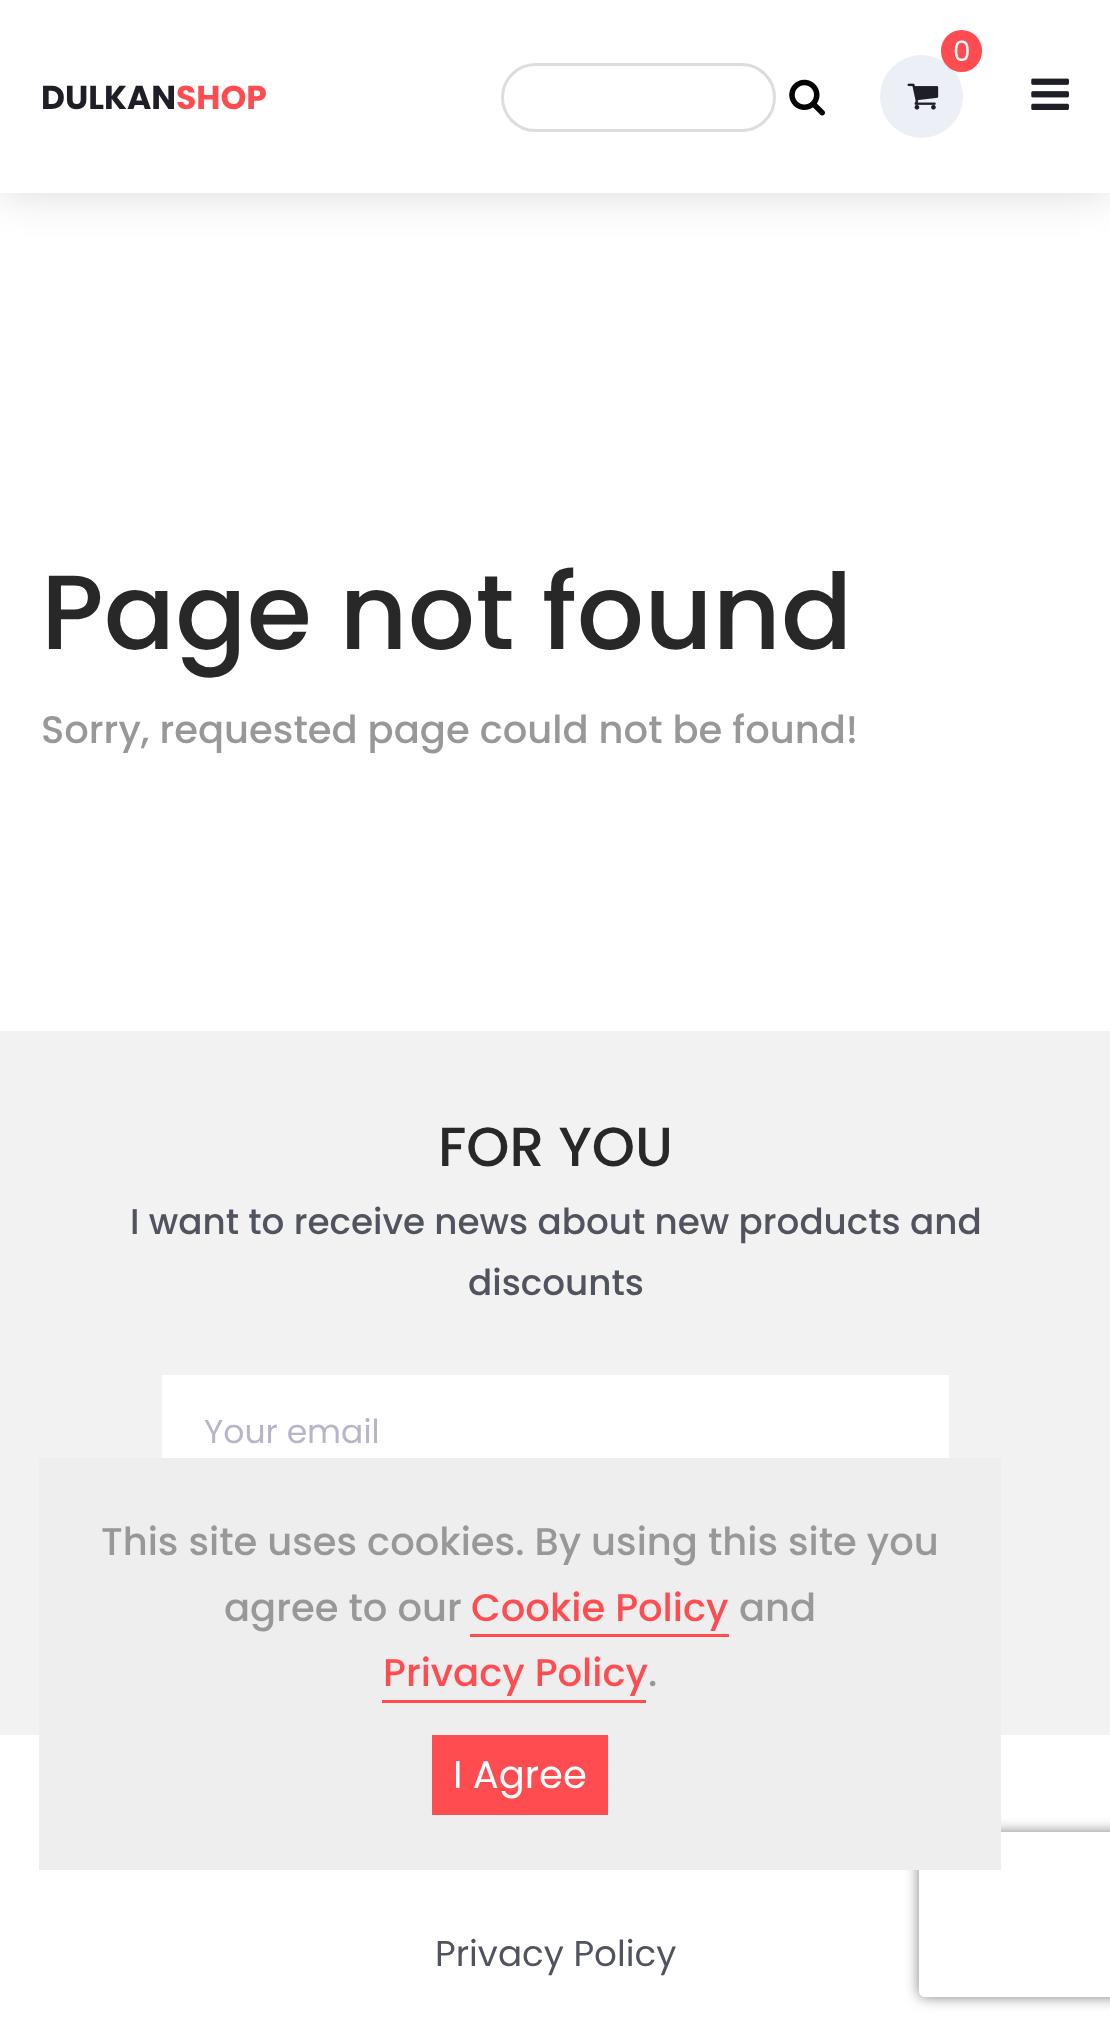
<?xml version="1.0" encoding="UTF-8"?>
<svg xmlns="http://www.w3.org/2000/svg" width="1110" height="2034">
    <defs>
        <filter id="blur1" x="-50%" y="-200%" width="200%" height="500%"><feGaussianBlur stdDeviation="22"/></filter>
        <clipPath id="clip1"><path d="M 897 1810 H 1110 V 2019 H 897 Z M 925 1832 H 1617 C 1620.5 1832 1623 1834.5 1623 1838 V 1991 C 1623 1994.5 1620.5 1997 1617 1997 H 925 C 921.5 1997 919 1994.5 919 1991 V 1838 C 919 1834.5 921.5 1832 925 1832 Z" clip-rule="evenodd"/></clipPath>
        <filter id="blur2" x="-50%" y="-200%" width="200%" height="500%"><feGaussianBlur stdDeviation="7"/></filter>
    </defs>
    <rect width="100%" height="100%" fill="#FFFFFF"/>
    <rect x="0" y="0" width="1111" height="193" fill="#000000" fill-opacity="0.15" filter="url(#blur1)"/>
    <rect x="0" y="0" width="1110" height="193" fill="#FFFFFF"/>
    <circle cx="921.5" cy="96.5" r="41.5" fill="#ECEFF6"/>
    <rect x="941" y="30" width="41" height="42" rx="20.5" fill="#FE4C50"/>
    <text x="953" y="61" font-family="Poppins" font-size="28" fill="#FFFFFF">0</text>
    <image x="907" y="83" width="32" height="27" href="img_01.png"/>
    <rect x="502.5" y="64.5" width="272" height="66" rx="33" fill="none" stroke="#DDDDDD" stroke-width="3"/>
    <image x="789" y="79" width="36" height="37" href="img_02.png"/>
    <image x="1031" y="78" width="38" height="32" href="img_03.png"/>
    <text x="41" y="109" font-family="Poppins" font-size="33" font-weight="700" fill="#1E1E27">DULKAN</text>
    <text x="176" y="109" font-family="Poppins" font-size="33" font-weight="700" fill="#FE4C50">SHOP</text>
    <text x="41" y="649" font-family="Poppins" font-size="105.5" font-weight="500" fill="#282828">Page not found</text>
    <text x="41" y="743" font-family="Poppins" font-size="38.5" font-weight="500" fill="#989898">Sorry, requested page could not be found!</text>
    <rect x="0" y="1031" width="1110" height="704" fill="#F2F2F2"/>
    <g clip-path="url(#clip1)">
        <rect x="919" y="1832" width="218" height="165" rx="6" fill="#808080" filter="url(#blur2)"/>
    </g>
    <rect x="39" y="1458" width="962" height="412" fill="#EEEEEE"/>
    <text x="101" y="1555" font-family="Poppins" font-size="38.5" font-weight="500" fill="#989898">This site uses cookies. By using this site you</text>
    <text x="224" y="1621" font-family="Poppins" font-size="38.5" font-weight="500" fill="#989898">agree to our</text>
    <text x="471" y="1621" font-family="Poppins" font-size="38.5" font-weight="500" fill="#FE4C50">Cookie Policy</text>
    <rect x="470" y="1634" width="259" height="3" fill="#FE4C50"/>
    <text x="739" y="1621" font-family="Poppins" font-size="38.5" font-weight="500" fill="#989898">and</text>
    <text x="383" y="1686" font-family="Poppins" font-size="38.5" font-weight="500" fill="#FE4C50">Privacy Policy</text>
    <rect x="382" y="1700" width="264" height="3" fill="#FE4C50"/>
    <text x="648" y="1686" font-family="Poppins" font-size="38.5" font-weight="500" fill="#989898">.</text>
    <rect x="432" y="1735" width="176" height="80" fill="#FE4C50"/>
    <text x="453" y="1788" font-family="Poppins" font-size="38.5" fill="#FFFFFF">I Agree</text>
    <text x="438" y="1166" font-family="Poppins" font-size="55" font-weight="500" fill="#282828">FOR YOU</text>
    <text x="130" y="1234" font-family="Poppins" font-size="35.75" font-weight="500" fill="#51545F">I want to receive news about new products and</text>
    <text x="468" y="1295" font-family="Poppins" font-size="35.75" font-weight="500" fill="#51545F">discounts</text>
    <rect x="162" y="1375" width="787" height="83" fill="#FFFFFF"/>
    <text x="204" y="1443" font-family="Poppins" font-size="33" fill="#B9B4C7">Your email</text>
    <text x="435" y="1966" font-family="Poppins" font-size="35.75" fill="#51545F">Privacy Policy</text>
</svg>
